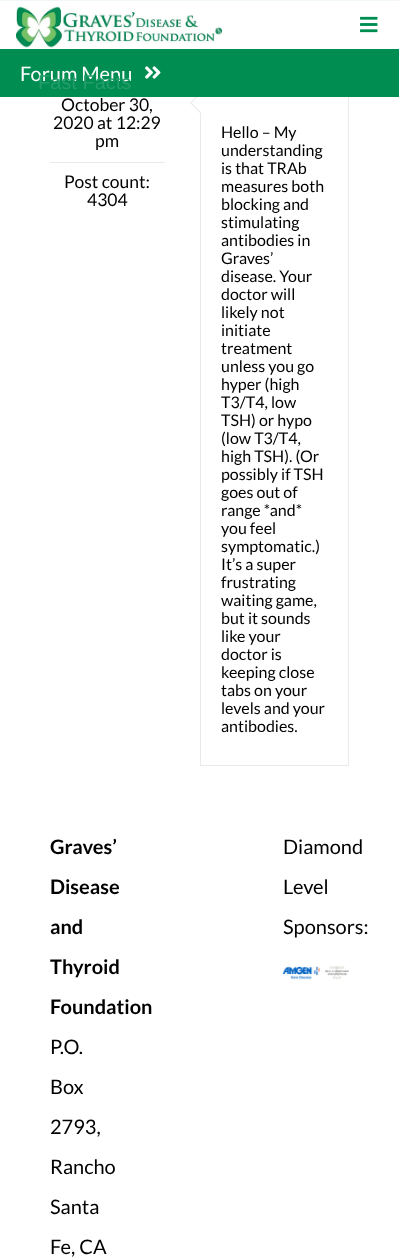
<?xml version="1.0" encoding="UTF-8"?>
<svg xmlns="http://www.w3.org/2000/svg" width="399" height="1260">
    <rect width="100%" height="100%" fill="#FFFFFF"/>
    <rect x="200.5" y="37.5" width="148" height="728" fill="none" stroke="#EBEAEA"/>
    <rect x="200" y="37" width="149" height="12" fill="#FFFFFF"/>
    <rect x="0" y="0" width="399" height="1" fill="#F1F6F9"/>
    <path d="M 200 93 L 210 103 L 200 113 L 190 103 Z" fill="#FFFFFF"/>
    <path d="M 191 102.5 L 200.5 112 L 200 113 L 190 103 Z" fill="#EBEAEA"/>
    <path d="M 200 93 L 200.5 94 L 191 103.5 L 190 103 Z" fill="#EBEAEA"/>
    <rect x="0" y="49" width="399" height="48" fill="#008D52"/>
    <text x="20" y="81" font-family="Lato" font-size="20" fill="#FFFFFF">Forum Menu</text>
    <image x="145" y="66" width="16" height="13" href="img_01.png"/>
    <image x="16" y="6" width="206" height="42" href="img_02.png"/>
    <image x="360" y="16" width="18" height="17" href="img_03.png"/>
    <text x="38" y="89" font-family="Liberation Sans" font-size="20" fill="#239D6A">Fast Facts</text>
    <rect x="50" y="162" width="115" height="1" fill="#EBEAEA"/>
    <text x="61" y="111" font-family="Lato" font-size="17.5" fill="#000000">October 30,</text>
    <text x="53" y="129" font-family="Lato" font-size="17.5" fill="#000000">2020 at 12:29</text>
    <text x="95" y="147" font-family="Lato" font-size="17.5" fill="#000000">pm</text>
    <text x="64" y="188" font-family="Lato" font-size="17.5" fill="#000000">Post count:</text>
    <text x="87" y="206" font-family="Lato" font-size="17.5" fill="#000000">4304</text>
    <text font-family="Lato" font-size="16" fill="#000000">
        <tspan x="221" y="138">Hello – My</tspan>
        <tspan x="221" y="156">understanding</tspan>
        <tspan x="221" y="174">is that TRAb</tspan>
        <tspan x="221" y="192">measures both</tspan>
        <tspan x="221" y="210">blocking and</tspan>
        <tspan x="221" y="228">stimulating</tspan>
        <tspan x="221" y="246">antibodies in</tspan>
        <tspan x="221" y="264">Graves’</tspan>
        <tspan x="221" y="282">disease. Your</tspan>
        <tspan x="221" y="300">doctor will</tspan>
        <tspan x="221" y="318">likely not</tspan>
        <tspan x="221" y="336">initiate</tspan>
        <tspan x="221" y="354">treatment</tspan>
        <tspan x="221" y="372">unless you go</tspan>
        <tspan x="221" y="390">hyper (high</tspan>
        <tspan x="221" y="408">T3/T4, low</tspan>
        <tspan x="221" y="426">TSH) or hypo</tspan>
        <tspan x="221" y="444">(low T3/T4,</tspan>
        <tspan x="221" y="462">high TSH). (Or</tspan>
        <tspan x="221" y="480">possibly if TSH</tspan>
        <tspan x="221" y="498">goes out of</tspan>
        <tspan x="221" y="516">range *and*</tspan>
        <tspan x="221" y="534">you feel</tspan>
        <tspan x="221" y="552">symptomatic.)</tspan>
        <tspan x="221" y="570">It’s a super</tspan>
        <tspan x="221" y="588">frustrating</tspan>
        <tspan x="221" y="606">waiting game,</tspan>
        <tspan x="221" y="624">but it sounds</tspan>
        <tspan x="221" y="642">like your</tspan>
        <tspan x="221" y="660">doctor is</tspan>
        <tspan x="221" y="678">keeping close</tspan>
        <tspan x="221" y="696">tabs on your</tspan>
        <tspan x="221" y="714">levels and your</tspan>
        <tspan x="221" y="732">antibodies.</tspan>
    </text>
    <text x="50" y="854" font-family="Lato" font-size="20" font-weight="700" fill="#000000">Graves’</text>
    <text x="50" y="894" font-family="Lato" font-size="20" font-weight="700" fill="#000000">Disease</text>
    <text x="50" y="934" font-family="Lato" font-size="20" font-weight="700" fill="#000000">and</text>
    <text x="50" y="974" font-family="Lato" font-size="20" font-weight="700" fill="#000000">Thyroid</text>
    <text x="50" y="1014" font-family="Lato" font-size="20" font-weight="700" fill="#000000">Foundation</text>
    <text x="50" y="1054" font-family="Lato" font-size="20" fill="#000000">P.O.</text>
    <text x="50" y="1094" font-family="Lato" font-size="20" fill="#000000">Box</text>
    <text x="50" y="1134" font-family="Lato" font-size="20" fill="#000000">2793,</text>
    <text x="50" y="1174" font-family="Lato" font-size="20" fill="#000000">Rancho</text>
    <text x="50" y="1214" font-family="Lato" font-size="20" fill="#000000">Santa</text>
    <text x="50" y="1254" font-family="Lato" font-size="20" fill="#000000">Fe, CA</text>
    <text x="283" y="854" font-family="Lato" font-size="20" fill="#000000">Diamond</text>
    <text x="283" y="894" font-family="Lato" font-size="20" fill="#000000">Level</text>
    <text x="283" y="934" font-family="Lato" font-size="20" fill="#000000">Sponsors:</text>
    <image x="282" y="966" width="67" height="14" href="img_04.png"/>
</svg>
